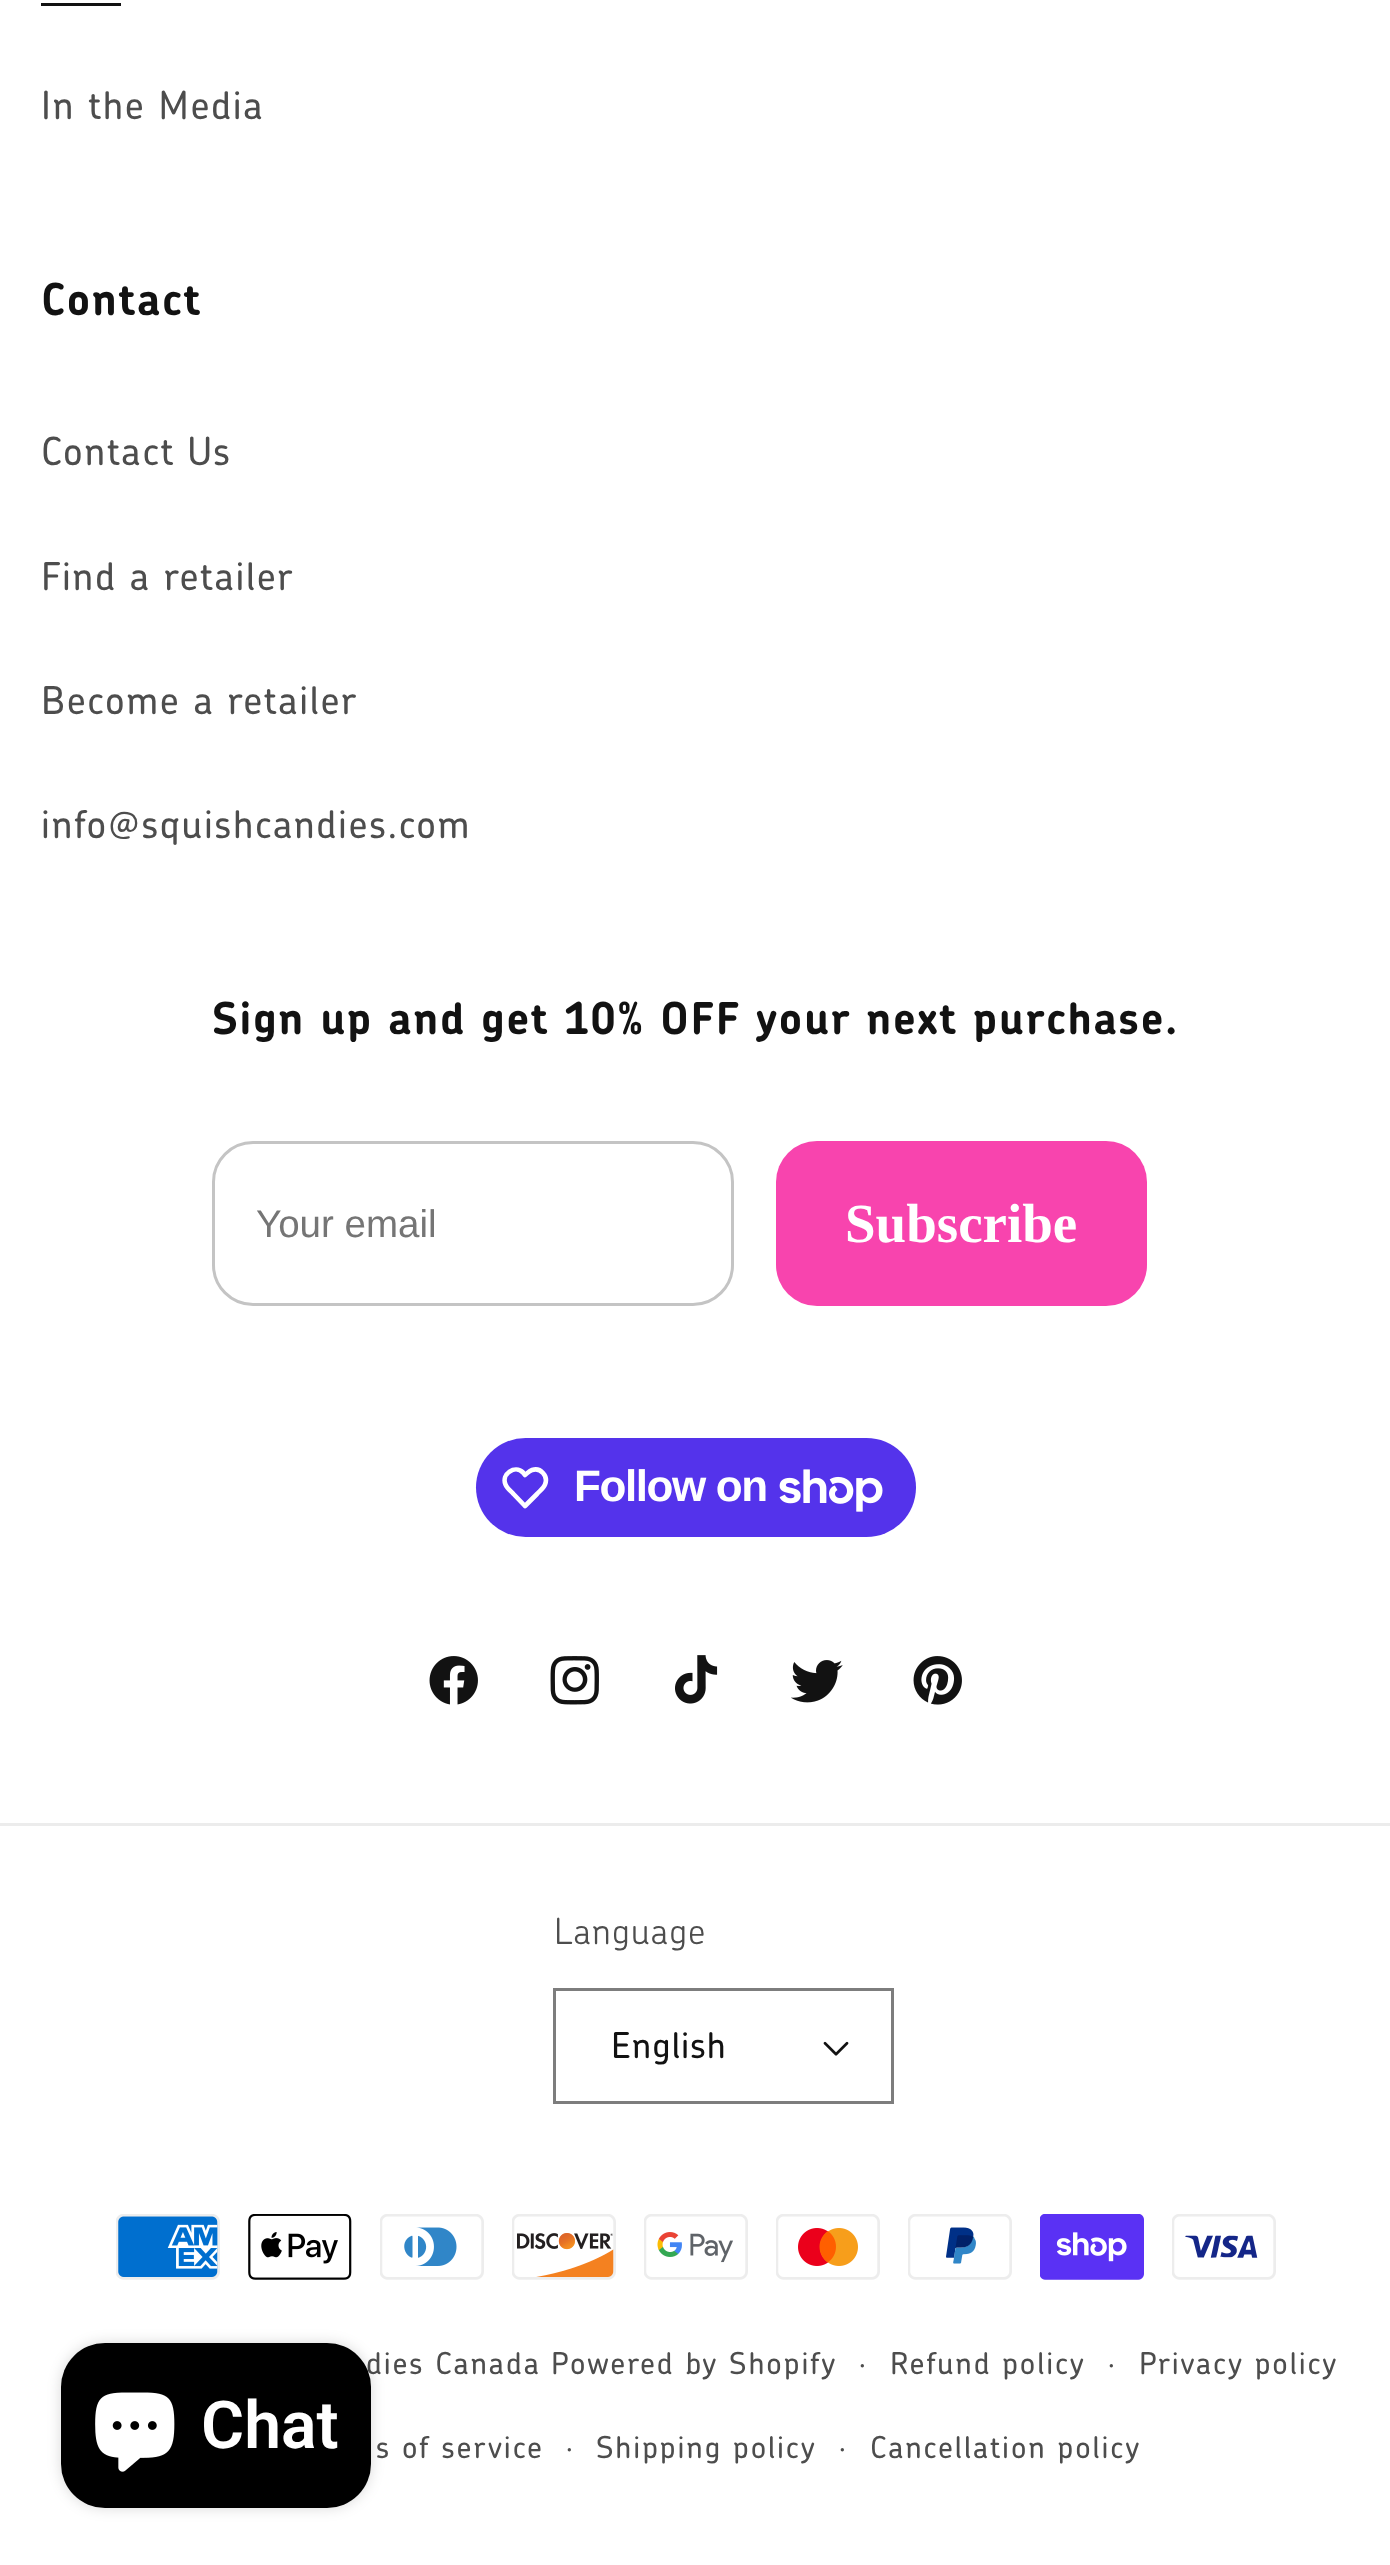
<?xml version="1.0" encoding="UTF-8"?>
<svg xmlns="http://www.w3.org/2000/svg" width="1390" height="2565">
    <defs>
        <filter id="blur1" x="-50%" y="-200%" width="200%" height="500%"><feGaussianBlur stdDeviation="7"/></filter>
    </defs>
    <rect width="100%" height="100%" fill="#FFFFFF"/>
    <rect x="41" y="3" width="80" height="3" fill="#121212"/>
    <text x="41" y="119" font-family="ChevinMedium" font-size="38.5" font-weight="500" letter-spacing="1.65" fill="#4D4D4D">In the Media</text>
    <text x="41" y="315" font-family="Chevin" font-size="44" font-weight="700" letter-spacing="1.65" fill="#121212">Contact</text>
    <text x="41" y="465" font-family="ChevinMedium" font-size="38.5" font-weight="500" letter-spacing="1.65" fill="#4D4D4D">Contact Us</text>
    <text x="41" y="590" font-family="ChevinMedium" font-size="38.5" font-weight="500" letter-spacing="1.65" fill="#4D4D4D">Find a retailer</text>
    <text x="41" y="714" font-family="ChevinMedium" font-size="38.5" font-weight="500" letter-spacing="1.65" fill="#4D4D4D">Become a retailer</text>
    <text x="41" y="838" font-family="ChevinMedium" font-size="38.5" font-weight="500" letter-spacing="1.65" fill="#4D4D4D">info@squishcandies.com</text>
    <text x="212" y="1034" font-family="Chevin" font-size="44" font-weight="700" letter-spacing="1.65" fill="#121212">Sign up and get 10% OFF your next purchase.</text>
    <rect x="213.5" y="1142.5" width="519" height="162" rx="39.5" fill="none" stroke="#C4C4C4" stroke-width="3"/>
    <text x="256" y="1237" font-family="Liberation Sans" font-size="38.5" fill="#757575">Your email</text>
    <rect x="776" y="1141" width="371" height="165" rx="41" fill="#F844AE"/>
    <text x="845" y="1242" font-family="Liberation Serif" font-size="55" font-weight="700" fill="#FFFFFF">Subscribe</text>
    <rect x="476" y="1438" width="440" height="99" rx="49.5" fill="#5433EB"/>
    <path d="M 523 1472.5 L 525 1475 C 527.5 1473 529 1471 532 1470 C 540.5 1467 548.5 1476 545 1484.5 C 543.5 1488.5 539.5 1491 537 1494 L 525 1506 L 513.5 1494 C 511 1491 507 1488.5 505.5 1484.5 C 501 1474 515 1464.5 523 1472.5 Z" fill="none" stroke="#FFFFFF" stroke-width="4.6" stroke-linejoin="round"/>
    <text x="574" y="1501" font-family="Liberation Sans" font-size="44" font-weight="700" letter-spacing="-1.4" fill="#FFFFFF">Follow on</text>
    <image x="779" y="1469" width="104" height="43" href="img_01.png"/>
    <image x="429" y="1656" width="49" height="49" href="img_02.png"/>
    <image x="550" y="1656" width="49" height="49" href="img_03.png"/>
    <image x="675" y="1655" width="43" height="49" href="img_04.png"/>
    <image x="791" y="1660" width="52" height="43" href="img_05.png"/>
    <image x="913" y="1656" width="49" height="49" href="img_06.png"/>
    <rect x="0" y="1823" width="1390" height="3" fill="#ECECEC"/>
    <text x="554" y="1944" font-family="Chevin" font-size="35.75" font-weight="300" letter-spacing="1" fill="#4D4D4D">Language</text>
    <image x="823" y="2041" width="26" height="15" href="img_07.png"/>
    <rect x="554.5" y="1989.5" width="338" height="113" fill="none" stroke="#7D7D7D" stroke-width="3"/>
    <text x="611" y="2058" font-family="ChevinMedium" font-size="35.75" font-weight="500" letter-spacing="1" fill="#121212">English</text>
    <image x="116" y="2214" width="104" height="66" href="img_08.png"/>
    <image x="248" y="2214" width="104" height="66" href="img_09.png"/>
    <image x="380" y="2214" width="104" height="66" href="img_10.png"/>
    <image x="512" y="2214" width="104" height="66" href="img_11.png"/>
    <image x="644" y="2214" width="104" height="66" href="img_12.png"/>
    <image x="776" y="2214" width="104" height="66" href="img_13.png"/>
    <image x="908" y="2214" width="104" height="66" href="img_14.png"/>
    <image x="1040" y="2214" width="104" height="66" href="img_15.png"/>
    <image x="1172" y="2214" width="104" height="66" href="img_16.png"/>
    <text x="366" y="2374" font-family="ChevinMedium" font-size="30.25" font-weight="500" letter-spacing="1.9" fill="#4D4D4D">dies Canada</text>
    <text x="859" y="2374" font-family="ChevinMedium" font-size="28" font-weight="500" letter-spacing="1.9" fill="#4D4D4D">·</text>
    <text x="890" y="2374" font-family="ChevinMedium" font-size="30.25" font-weight="500" letter-spacing="1.9" fill="#4D4D4D">Refund policy</text>
    <text x="1108" y="2374" font-family="ChevinMedium" font-size="28" font-weight="500" letter-spacing="1.9" fill="#4D4D4D">·</text>
    <text x="1139" y="2374" font-family="ChevinMedium" font-size="30.25" font-weight="500" letter-spacing="1.9" fill="#4D4D4D">Privacy policy</text>
    <text x="376" y="2458" font-family="ChevinMedium" font-size="30.25" font-weight="500" letter-spacing="1.9" fill="#4D4D4D">s of service</text>
    <text x="566" y="2458" font-family="ChevinMedium" font-size="28" font-weight="500" letter-spacing="1.9" fill="#4D4D4D">·</text>
    <text x="596" y="2458" font-family="ChevinMedium" font-size="30.25" font-weight="500" letter-spacing="1.9" fill="#4D4D4D">Shipping policy</text>
    <text x="839" y="2458" font-family="ChevinMedium" font-size="28" font-weight="500" letter-spacing="1.9" fill="#4D4D4D">·</text>
    <text x="870" y="2458" font-family="ChevinMedium" font-size="30.25" font-weight="500" letter-spacing="1.9" fill="#4D4D4D">Cancellation policy</text>
    <text x="551" y="2374" font-family="ChevinMedium" font-size="30.25" font-weight="500" letter-spacing="1.9" fill="#4D4D4D">Powered by Shopify</text>
    <rect x="61" y="2343" width="310" height="165" rx="44" fill="#000000" fill-opacity="0.15" filter="url(#blur1)"/>
    <rect x="61" y="2343" width="310" height="165" rx="44" fill="#000000"/>
    <image x="95" y="2392" width="80" height="80" href="img_17.png"/>
    <text x="201" y="2448" font-family="Roboto" font-size="66" font-weight="600" fill="#FFFFFF">Chat</text>
</svg>
